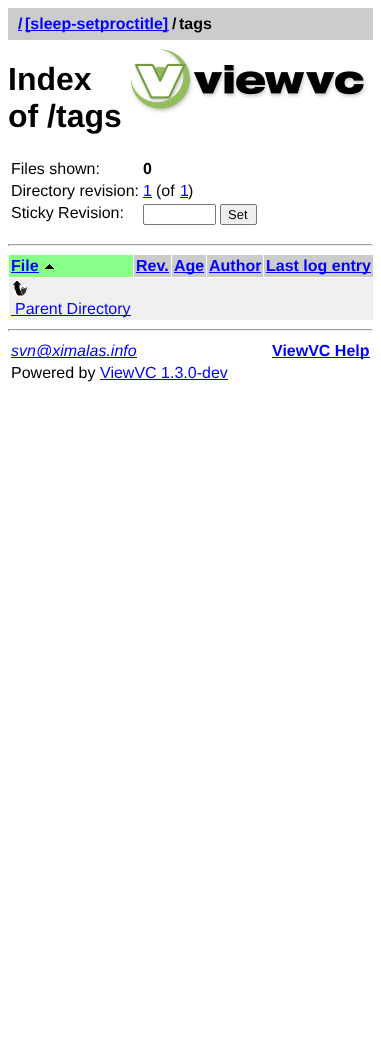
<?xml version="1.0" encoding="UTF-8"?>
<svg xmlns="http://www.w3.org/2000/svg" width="381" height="1054">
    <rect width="100%" height="100%" fill="#FFFFFF"/>
    <rect x="8" y="8" width="365" height="32" fill="#CCCCCC"/>
    <text x="18" y="29" font-family="Liberation Sans" font-size="16" font-weight="700" fill="#0000FF">/</text>
    <rect x="18" y="30" width="4" height="1" fill="#0000FF"/>
    <rect x="25" y="30" width="144" height="1" fill="#0000FF"/>
    <text x="25" y="29" font-family="Liberation Sans" font-size="16" font-weight="700" fill="#0000FF">[sleep-setproctitle]</text>
    <text x="172" y="29" font-family="Liberation Sans" font-size="16" font-weight="700" fill="#000000">/</text>
    <text x="179" y="29" font-family="Liberation Sans" font-size="16" font-weight="700" fill="#000000">tags</text>
    <text font-family="Liberation Sans" font-size="32" font-weight="700" fill="#000000">
        <tspan x="8" y="90">Index</tspan>
        <tspan x="8" y="127">of /tags</tspan>
    </text>
    <image x="130" y="49" width="237" height="64" href="img_01.png"/>
    <text x="11" y="174" font-family="Liberation Sans" font-size="16" fill="#000000">Files shown:</text>
    <text x="143" y="174" font-family="Liberation Sans" font-size="16" font-weight="700" fill="#000000">0</text>
    <text x="11" y="196" font-family="Liberation Sans" font-size="16" fill="#000000">Directory revision:</text>
    <text x="143" y="196" font-family="Liberation Sans" font-size="16" fill="#0000FF">1</text>
    <rect x="143" y="197" width="9" height="1" fill="#0000FF"/>
    <text x="156" y="196" font-family="Liberation Sans" font-size="16" fill="#000000">(of</text>
    <text x="180" y="196" font-family="Liberation Sans" font-size="16" fill="#0000FF">1</text>
    <rect x="180" y="197" width="8" height="1" fill="#0000FF"/>
    <text x="188" y="196" font-family="Liberation Sans" font-size="16" fill="#000000">)</text>
    <text x="11" y="218" font-family="Liberation Sans" font-size="16" fill="#000000">Sticky Revision:</text>
    <rect x="143.5" y="204.5" width="72" height="20" rx="1.5" fill="none" stroke="#767676"/>
    <rect x="220.5" y="204.5" width="36" height="20" rx="1.5" fill="#EFEFEF" stroke="#767676"/>
    <text x="228" y="219" font-family="Liberation Sans" font-size="13" fill="#000000">Set</text>
    <rect x="8" y="244" width="365" height="1" fill="#9F9F9F"/>
    <rect x="372" y="244" width="1" height="2" fill="#EEEEEE"/>
    <rect x="8" y="245" width="365" height="1" fill="#EEEEEE"/>
    <rect x="8" y="244" width="1" height="2" fill="#9F9F9F"/>
    <rect x="9" y="255" width="124" height="22" fill="#88FF88"/>
    <text x="11" y="271" font-family="Liberation Sans" font-size="16" font-weight="700" fill="#0000FF">File</text>
    <rect x="11" y="272" width="28" height="1" fill="#0000FF"/>
    <image x="45" y="264" width="9" height="5" href="img_02.png"/>
    <rect x="134" y="255" width="37" height="22" fill="#CCCCCC"/>
    <text x="136" y="271" font-family="Liberation Sans" font-size="16" font-weight="700" fill="#0000FF">Rev.</text>
    <rect x="136" y="272" width="33" height="1" fill="#0000FF"/>
    <rect x="172" y="255" width="34" height="22" fill="#CCCCCC"/>
    <rect x="174" y="272" width="30" height="1" fill="#0000FF"/>
    <text x="174" y="271" font-family="Liberation Sans" font-size="16" font-weight="700" fill="#0000FF">Age</text>
    <rect x="207" y="255" width="56" height="22" fill="#CCCCCC"/>
    <text x="209" y="271" font-family="Liberation Sans" font-size="16" font-weight="700" fill="#0000FF">Author</text>
    <rect x="209" y="272" width="52" height="1" fill="#0000FF"/>
    <rect x="264" y="255" width="109" height="22" fill="#CCCCCC"/>
    <rect x="266" y="272" width="105" height="1" fill="#0000FF"/>
    <text x="266" y="271" font-family="Liberation Sans" font-size="16" font-weight="700" fill="#0000FF">Last log entry</text>
    <rect x="9" y="278" width="364" height="42" fill="#F0F0F0"/>
    <image x="13" y="281" width="14" height="15" href="img_03.png"/>
    <rect x="11" y="315" width="120" height="1" fill="#0000FF"/>
    <text x="15" y="314" font-family="Liberation Sans" font-size="16" fill="#0000FF">Parent Directory</text>
    <rect x="8" y="329" width="365" height="1" fill="#9F9F9F"/>
    <rect x="372" y="329" width="1" height="2" fill="#EEEEEE"/>
    <rect x="8" y="330" width="365" height="1" fill="#EEEEEE"/>
    <rect x="8" y="329" width="1" height="2" fill="#9F9F9F"/>
    <rect x="11" y="357" width="126" height="1" fill="#0000FF"/>
    <text x="11" y="356" font-family="Liberation Sans" font-size="16" font-style="italic" fill="#0000FF">svn@ximalas.info</text>
    <rect x="272" y="357" width="98" height="1" fill="#0000FF"/>
    <text x="272" y="356" font-family="Liberation Sans" font-size="16" font-weight="700" fill="#0000FF">ViewVC Help</text>
    <text x="11" y="378" font-family="Liberation Sans" font-size="16" fill="#000000">Powered by</text>
    <text x="100" y="378" font-family="Liberation Sans" font-size="16" fill="#0000FF">ViewVC 1.3.0-dev</text>
    <rect x="100" y="379" width="128" height="1" fill="#0000FF"/>
</svg>
